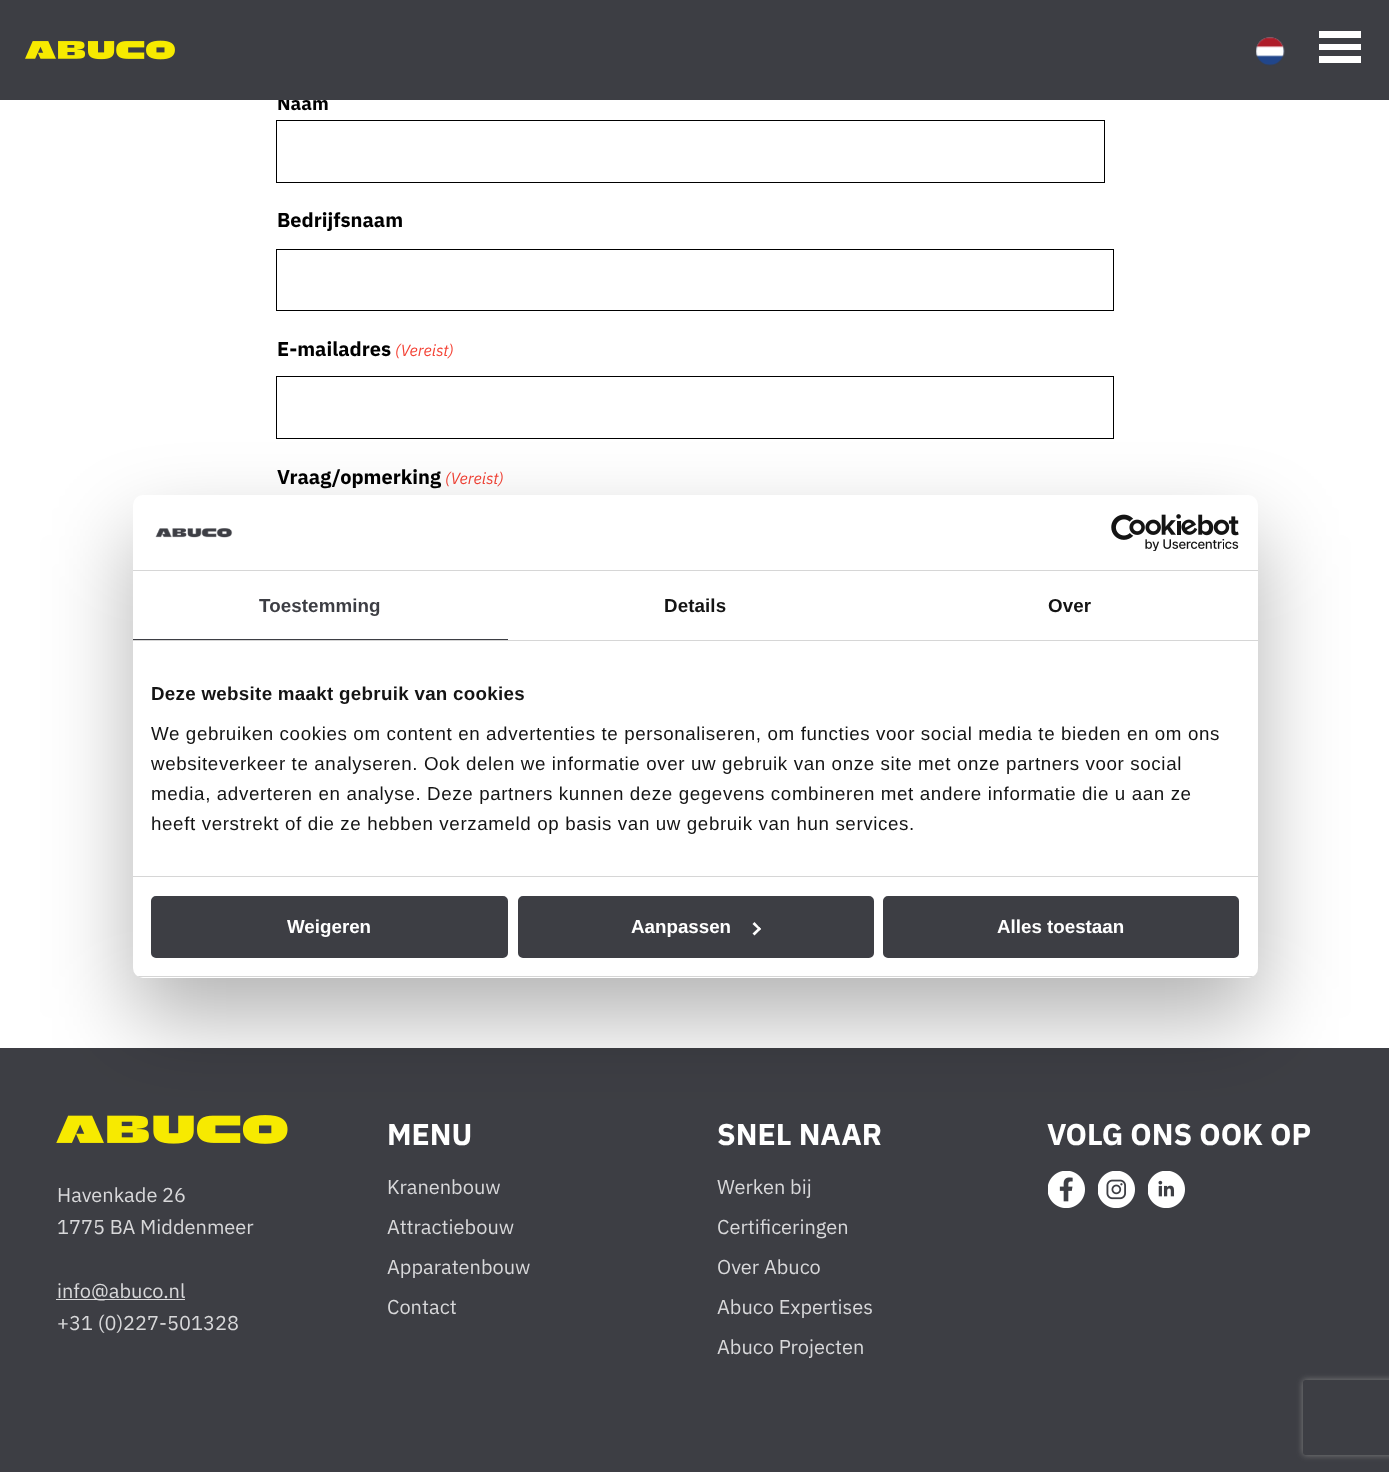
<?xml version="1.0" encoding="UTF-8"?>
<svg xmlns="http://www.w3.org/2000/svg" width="1389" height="1472">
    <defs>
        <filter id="blur1" x="-50%" y="-200%" width="200%" height="500%"><feGaussianBlur stdDeviation="42.5"/></filter>
        <clipPath id="clip1"><rect x="133" y="495" width="1125" height="483" rx="10"/></clipPath>
        <clipPath id="clip2"><path d="M 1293 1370 H 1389 V 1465 H 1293 Z M 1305.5 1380 H 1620.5 C 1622 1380 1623 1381 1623 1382.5 V 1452.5 C 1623 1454 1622 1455 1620.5 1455 H 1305.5 C 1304 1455 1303 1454 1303 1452.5 V 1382.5 C 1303 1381 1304 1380 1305.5 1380 Z" clip-rule="evenodd"/></clipPath>
        <filter id="blur2" x="-50%" y="-200%" width="200%" height="500%"><feGaussianBlur stdDeviation="3"/></filter>
    </defs>
    <rect width="100%" height="100%" fill="#FFFFFF"/>
    <text x="277" y="110" font-family="IBM Plex Sans" font-size="18.75" font-weight="700" fill="#000000">Naam</text>
    <rect x="0" y="0" width="1389" height="100" fill="#3D3E44"/>
    <image x="25" y="40" width="150" height="20" href="img_01.png"/>
    <image x="1256" y="37" width="29" height="29" href="img_02.png"/>
    <rect x="1319" y="56" width="42" height="7" fill="#FFFFFF"/>
    <rect x="1319" y="31" width="42" height="7" fill="#FFFFFF"/>
    <rect x="1319" y="44" width="42" height="6" fill="#FFFFFF"/>
    <rect x="276.5" y="120.5" width="828" height="62" fill="none" stroke="#000000"/>
    <text x="277" y="227" font-family="IBM Plex Sans" font-size="20" font-weight="700" fill="#000000">Bedrijfsnaam</text>
    <rect x="276.5" y="249.5" width="837" height="61" fill="none" stroke="#000000"/>
    <text x="277" y="356" font-family="IBM Plex Sans" font-size="20" font-weight="700" fill="#000000">E-mailadres</text>
    <text x="395" y="356" font-family="IBM Plex Sans" font-size="16" font-style="italic" fill="#F44336">(Vereist)</text>
    <rect x="276.5" y="376.5" width="837" height="62" fill="none" stroke="#000000"/>
    <text x="277" y="484" font-family="IBM Plex Sans" font-size="20" font-weight="700" fill="#000000">Vraag/opmerking</text>
    <text x="445" y="484" font-family="IBM Plex Sans" font-size="16" font-style="italic" fill="#F44336">(Vereist)</text>
    <rect x="0" y="1048" width="1389" height="424" fill="#3D3E44"/>
    <image x="56" y="1115" width="232" height="29" href="img_03.png"/>
    <text font-family="IBM Plex Sans" font-size="20" fill="#D8D8DA">
        <tspan x="57" y="1202">Havenkade 26</tspan>
        <tspan x="57" y="1234">1775 BA Middenmeer</tspan>
    </text>
    <rect x="56" y="1299" width="129" height="1" fill="#D8D8DA"/>
    <text font-family="IBM Plex Sans" font-size="20" fill="#D8D8DA">
        <tspan x="57" y="1298">info@abuco.nl</tspan>
        <tspan x="57" y="1330">+31 (0)227-501328</tspan>
    </text>
    <text x="387" y="1145" font-family="IBM Plex Sans" font-size="30" font-weight="700" fill="#FFFFFF">MENU</text>
    <text x="387" y="1194" font-family="IBM Plex Sans" font-size="20" fill="#D8D8DA">Kranenbouw</text>
    <text x="387" y="1234" font-family="IBM Plex Sans" font-size="20" fill="#D8D8DA">Attractiebouw</text>
    <text x="387" y="1274" font-family="IBM Plex Sans" font-size="20" fill="#D8D8DA">Apparatenbouw</text>
    <text x="387" y="1314" font-family="IBM Plex Sans" font-size="20" fill="#D8D8DA">Contact</text>
    <text x="717" y="1145" font-family="IBM Plex Sans" font-size="30" font-weight="700" fill="#FFFFFF">SNEL NAAR</text>
    <text x="717" y="1194" font-family="IBM Plex Sans" font-size="20" fill="#D8D8DA">Werken bij</text>
    <text x="717" y="1234" font-family="IBM Plex Sans" font-size="20" fill="#D8D8DA">Certificeringen</text>
    <text x="717" y="1274" font-family="IBM Plex Sans" font-size="20" fill="#D8D8DA">Over Abuco</text>
    <text x="717" y="1314" font-family="IBM Plex Sans" font-size="20" fill="#D8D8DA">Abuco Expertises</text>
    <text x="717" y="1354" font-family="IBM Plex Sans" font-size="20" fill="#D8D8DA">Abuco Projecten</text>
    <text x="1047" y="1145" font-family="IBM Plex Sans" font-size="30" font-weight="700" fill="#FFFFFF">VOLG ONS OOK OP</text>
    <image x="1048" y="1171" width="37" height="37" href="img_04.png"/>
    <image x="1098" y="1171" width="37" height="37" href="img_05.png"/>
    <image x="1148" y="1171" width="37" height="37" href="img_06.png"/>
    <rect x="133" y="535" width="1125" height="483" rx="10" fill="#000000" fill-opacity="0.3" filter="url(#blur1)"/>
    <rect x="133" y="495" width="1125" height="483" rx="10" fill="#FFFFFF"/>
    <rect x="133" y="570" width="1125" height="1" fill="#D6D6D6"/>
    <image x="155" y="528" width="78" height="10" href="img_07.png"/>
    <image x="1111" y="514" width="128" height="37" href="img_08.png"/>
    <rect x="133" y="640" width="1125" height="1" fill="#D6D6D6"/>
    <rect x="133" y="639" width="375" height="1" fill="#3D3E44"/>
    <text x="259" y="612" font-family="Liberation Sans" font-size="18.75" font-weight="700" letter-spacing="0.1" fill="#3D3E44">Toestemming</text>
    <text x="664" y="612" font-family="Liberation Sans" font-size="18.75" font-weight="700" letter-spacing="0.1" fill="#141414">Details</text>
    <text x="1048" y="612" font-family="Liberation Sans" font-size="18.75" font-weight="700" letter-spacing="0.1" fill="#141414">Over</text>
    <rect x="133" y="876" width="1125" height="1" fill="#D6D6D6"/>
    <text x="151" y="700" font-family="Liberation Sans" font-size="18.75" font-weight="700" letter-spacing="0.3" fill="#141414">Deze website maakt gebruik van cookies</text>
    <text font-family="Liberation Sans" font-size="18.75" letter-spacing="0.62" fill="#141414">
        <tspan x="151" y="740">We gebruiken cookies om content en advertenties te personaliseren, om functies voor social media te bieden en om ons</tspan>
        <tspan x="151" y="770">websiteverkeer te analyseren. Ook delen we informatie over uw gebruik van onze site met onze partners voor social</tspan>
        <tspan x="151" y="800">media, adverteren en analyse. Deze partners kunnen deze gegevens combineren met andere informatie die u aan ze</tspan>
        <tspan x="151" y="830">heeft verstrekt of die ze hebben verzameld op basis van uw gebruik van hun services.</tspan>
    </text>
    <g clip-path="url(#clip1)">
        <rect x="133" y="976" width="1125" height="1" fill="#D6D6D6"/>
    </g>
    <rect x="152.5" y="897.5" width="354" height="59" rx="3.5" fill="#3D3E44" stroke="#3D3E44" stroke-width="3"/>
    <text x="287" y="933" font-family="Liberation Sans" font-size="18.75" font-weight="700" fill="#FFFFFF">Weigeren</text>
    <rect x="519.5" y="897.5" width="353" height="59" rx="3.5" fill="#3D3E44" stroke="#3D3E44" stroke-width="3"/>
    <text x="631" y="933" font-family="Liberation Sans" font-size="18.75" font-weight="700" fill="#FFFFFF">Aanpassen</text>
    <path d="M 754.5 922 L 761 929 L 759.5 930.5 L 752.5 924 Z" fill="#FFFFFF"/>
    <path d="M 759.5 927 L 761 929 L 754.5 935.5 L 752.5 933.5 Z" fill="#FFFFFF"/>
    <rect x="884.5" y="897.5" width="353" height="59" rx="3.5" fill="#3D3E44" stroke="#3D3E44" stroke-width="3"/>
    <text x="997" y="933" font-family="Liberation Sans" font-size="18.75" font-weight="700" fill="#FFFFFF">Alles toestaan</text>
    <g clip-path="url(#clip2)">
        <rect x="1303" y="1380" width="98" height="75" rx="2.5" fill="#808080" filter="url(#blur2)"/>
    </g>
</svg>
